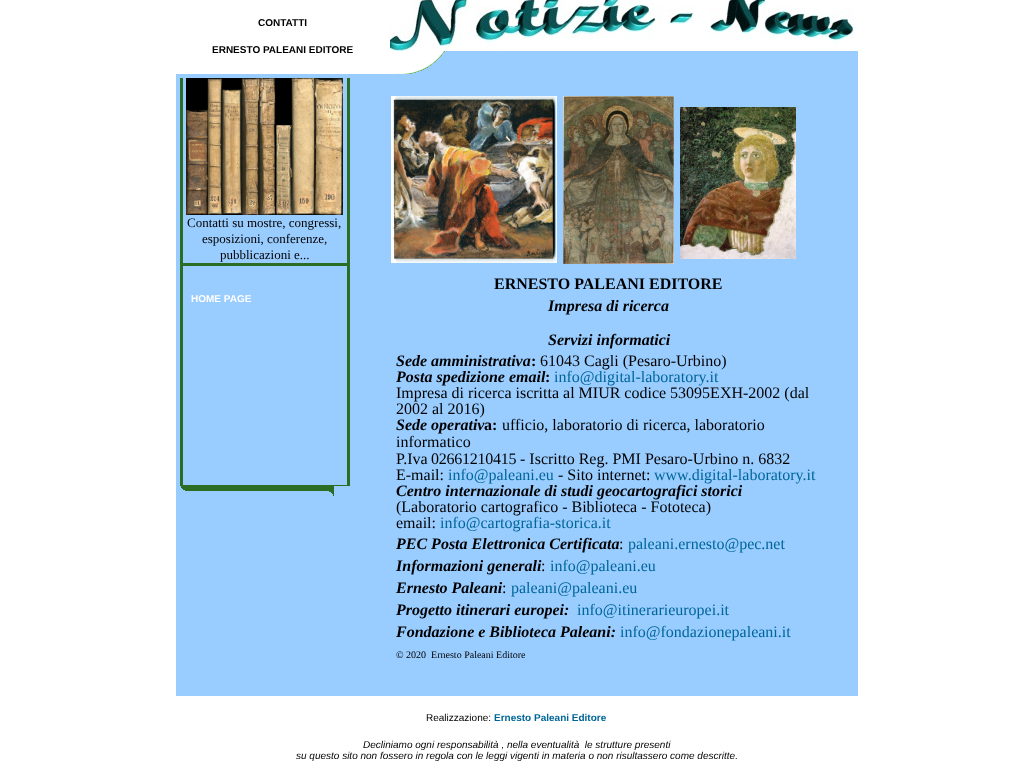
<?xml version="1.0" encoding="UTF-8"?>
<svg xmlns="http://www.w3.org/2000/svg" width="1033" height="763">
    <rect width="100%" height="100%" fill="#FFFFFF"/>
    <text x="258" y="26" font-family="Liberation Sans" font-size="10" font-weight="700" fill="#000000">CONTATTI</text>
    <text x="212" y="53" font-family="Liberation Sans" font-size="10" font-weight="700" fill="#000000">ERNESTO PALEANI EDITORE</text>
    <image x="390" y="0" width="464" height="51" href="img_01.png"/>
    <rect x="412" y="51" width="446" height="23" fill="#99CCFF"/>
    <image x="390" y="51" width="55" height="23" href="img_02.png"/>
    <rect x="176" y="74" width="682" height="622" fill="#99CCFF"/>
    <rect x="180" y="78" width="170" height="408" fill="#2B6D23"/>
    <rect x="183" y="78" width="164" height="185" fill="#99CCFF"/>
    <image x="186" y="78" width="157" height="137" href="img_03.png"/>
    <text x="187" y="227" font-family="Liberation Serif" font-size="13" fill="#000000">Contatti su mostre, congressi,</text>
    <text x="202" y="243" font-family="Liberation Serif" font-size="13" fill="#000000">esposizioni, conferenze,</text>
    <text x="220" y="259" font-family="Liberation Serif" font-size="13" fill="#000000">pubblicazioni e...</text>
    <rect x="183" y="266" width="164" height="219" fill="#99CCFF"/>
    <text x="191" y="302" font-family="Liberation Sans" font-size="10" font-weight="700" fill="#FFFFFF">HOME PAGE</text>
    <image x="181" y="486" width="153" height="10" href="img_04.png"/>
    <image x="391" y="96" width="166" height="167" href="img_05.png"/>
    <image x="563" y="96" width="111" height="168" href="img_06.png"/>
    <image x="680" y="107" width="116" height="152" href="img_07.png"/>
    <text x="494" y="289" font-family="Liberation Serif" font-size="16" font-weight="700" fill="#000000">ERNESTO PALEANI EDITORE</text>
    <text x="548" y="311" font-family="Liberation Serif" font-size="16" font-weight="700" font-style="italic" fill="#000000">Impresa di ricerca</text>
    <text x="548" y="345" font-family="Liberation Serif" font-size="16" font-weight="700" font-style="italic" fill="#000000">Servizi informatici</text>
    <text x="396" y="366" font-family="Liberation Serif" font-size="16" font-weight="700" font-style="italic" fill="#000000">Sede amministrativa</text>
    <text x="531" y="366" font-family="Liberation Serif" font-size="16" font-weight="700" fill="#000000">:</text>
    <text x="540" y="366" font-family="Liberation Serif" font-size="16" fill="#000000">61043 Cagli (Pesaro-Urbino)</text>
    <text x="396" y="382" font-family="Liberation Serif" font-size="16" font-weight="700" font-style="italic" fill="#000000">Posta spedizione email</text>
    <text x="545" y="382" font-family="Liberation Serif" font-size="16" font-weight="700" fill="#000000">:</text>
    <text x="554" y="382" font-family="Liberation Serif" font-size="16" fill="#006699">info@digital-laboratory.it</text>
    <text font-family="Liberation Serif" font-size="16" fill="#000000">
        <tspan x="396" y="398">Impresa di ricerca iscritta al MIUR codice 53095EXH-2002 (dal</tspan>
        <tspan x="396" y="414">2002 al 2016)</tspan>
    </text>
    <text x="396" y="430" font-family="Liberation Serif" font-size="16" font-weight="700" font-style="italic" fill="#000000">Sede operativ</text>
    <text x="484" y="430" font-family="Liberation Serif" font-size="16" font-weight="700" fill="#000000">a:</text>
    <text x="502" y="430" font-family="Liberation Serif" font-size="16" fill="#000000">ufficio, laboratorio di ricerca, laboratorio</text>
    <text font-family="Liberation Serif" font-size="16" fill="#000000">
        <tspan x="396" y="447">informatico</tspan>
        <tspan x="396" y="464">P.Iva</tspan>
    </text>
    <text x="431" y="464" font-family="Liberation Serif" font-size="16" letter-spacing="-0.25" fill="#000000">02661210415</text>
    <text x="520" y="464" font-family="Liberation Serif" font-size="16" fill="#000000">- Iscritto Reg. PMI Pesaro-Urbino n. 6832</text>
    <text x="396" y="480" font-family="Liberation Serif" font-size="16" fill="#000000">E-mail:</text>
    <text x="448" y="480" font-family="Liberation Serif" font-size="16" fill="#006699">info@paleani.eu</text>
    <text x="558" y="480" font-family="Liberation Serif" font-size="16" fill="#000000">- Sito internet:</text>
    <text x="654" y="480" font-family="Liberation Serif" font-size="16" fill="#006699">www.digital-laboratory.it</text>
    <text x="396" y="496" font-family="Liberation Serif" font-size="16" font-weight="700" font-style="italic" fill="#000000">Centro internazionale di studi geocartografici storici</text>
    <text font-family="Liberation Serif" font-size="16" fill="#000000">
        <tspan x="396" y="512">(Laboratorio cartografico - Biblioteca - Fototeca)</tspan>
        <tspan x="396" y="528">email:</tspan>
    </text>
    <text x="440" y="528" font-family="Liberation Serif" font-size="16" fill="#006699">info@cartografia-storica.it</text>
    <text x="396" y="549" font-family="Liberation Serif" font-size="16" font-weight="700" font-style="italic" fill="#000000">PEC Posta Elettronica Certificata</text>
    <text x="619" y="549" font-family="Liberation Serif" font-size="16" fill="#000000">:</text>
    <text x="628" y="549" font-family="Liberation Serif" font-size="16" fill="#006699">paleani.ernesto@pec.net</text>
    <text x="396" y="571" font-family="Liberation Serif" font-size="16" font-weight="700" font-style="italic" fill="#000000">Informazioni generali</text>
    <text x="541" y="571" font-family="Liberation Serif" font-size="16" fill="#000000">:</text>
    <text x="550" y="571" font-family="Liberation Serif" font-size="16" fill="#006699">info@paleani.eu</text>
    <text x="396" y="593" font-family="Liberation Serif" font-size="16" font-weight="700" font-style="italic" fill="#000000">Ernesto Paleani</text>
    <text x="502" y="593" font-family="Liberation Serif" font-size="16" fill="#000000">:</text>
    <text x="511" y="593" font-family="Liberation Serif" font-size="16" fill="#006699">paleani@paleani.eu</text>
    <text x="396" y="615" font-family="Liberation Serif" font-size="16" font-weight="700" font-style="italic" fill="#000000">Progetto itinerari europei:</text>
    <text x="577" y="615" font-family="Liberation Serif" font-size="16" fill="#006699">info@itinerarieuropei.it</text>
    <text x="396" y="637" font-family="Liberation Serif" font-size="16" font-weight="700" font-style="italic" fill="#000000">Fondazione e Biblioteca Paleani:</text>
    <text x="620" y="637" font-family="Liberation Serif" font-size="16" fill="#006699">info@fondazionepaleani.it</text>
    <text x="396" y="658" font-family="Liberation Serif" font-size="10" fill="#000000" xml:space="preserve">© 2020  Ernesto Paleani Editore</text>
    <text x="426" y="721" font-family="Liberation Sans" font-size="10" fill="#000000">Realizzazione:</text>
    <text x="494" y="721" font-family="Liberation Sans" font-size="10" font-weight="700" fill="#006699">Ernesto Paleani Editore</text>
    <text x="363" y="748" font-family="Liberation Sans" font-size="10" font-style="italic" fill="#000000" xml:space="preserve">Decliniamo ogni responsabilità , nella eventualità  le strutture presenti</text>
    <text x="296" y="759" font-family="Liberation Sans" font-size="10" font-style="italic" fill="#000000">su questo sito non fossero in regola con le leggi vigenti in materia o non risultassero come descritte.</text>
</svg>
